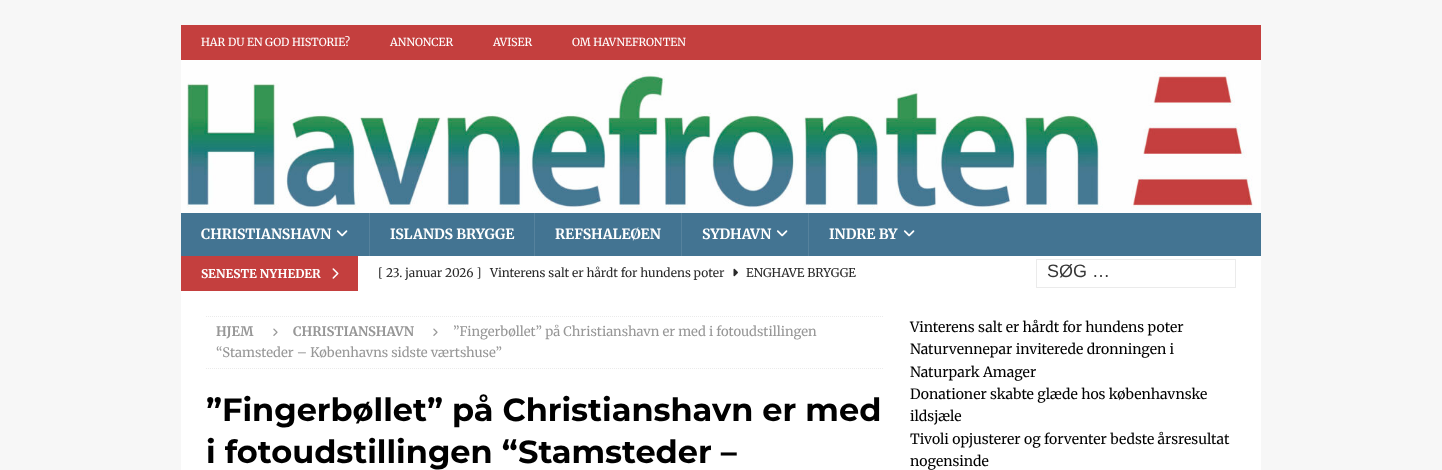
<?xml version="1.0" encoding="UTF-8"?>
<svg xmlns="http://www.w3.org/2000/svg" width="1442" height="470">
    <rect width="100%" height="100%" fill="#F7F7F7"/>
    <rect x="181" y="25" width="1080" height="35" fill="#C43F3E"/>
    <text x="201" y="46" font-family="'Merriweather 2'" font-size="11" font-weight="300" fill="#FFFFFF">HAR DU EN GOD HISTORIE?</text>
    <text x="390" y="46" font-family="'Merriweather 2'" font-size="11" font-weight="300" fill="#FFFFFF">ANNONCER</text>
    <text x="493" y="46" font-family="'Merriweather 2'" font-size="11" font-weight="300" fill="#FFFFFF">AVISER</text>
    <text x="572" y="46" font-family="'Merriweather 2'" font-size="11" font-weight="300" fill="#FFFFFF">OM HAVNEFRONTEN</text>
    <image x="181" y="60" width="1080" height="153" href="img_01.png"/>
    <rect x="181" y="213" width="1080" height="43" fill="#437492"/>
    <text x="201" y="239" font-family="Merriweather" font-size="14" font-weight="300" fill="#FFFFFF">CHRISTIANSHAVN</text>
    <image x="336" y="230" width="12" height="7" href="img_02.png"/>
    <rect x="369" y="213" width="1" height="43" fill="#56829D"/>
    <text x="390" y="239" font-family="Merriweather" font-size="14" font-weight="300" fill="#FFFFFF">ISLANDS BRYGGE</text>
    <rect x="534" y="213" width="1" height="43" fill="#56829D"/>
    <text x="555" y="239" font-family="Merriweather" font-size="14" font-weight="300" fill="#FFFFFF">REFSHALEØEN</text>
    <rect x="681" y="213" width="1" height="43" fill="#56829D"/>
    <text x="702" y="239" font-family="Merriweather" font-size="14" font-weight="300" fill="#FFFFFF">SYDHAVN</text>
    <image x="776" y="230" width="12" height="7" href="img_02.png"/>
    <rect x="808" y="213" width="1" height="43" fill="#56829D"/>
    <text x="829" y="239" font-family="Merriweather" font-size="14" font-weight="300" fill="#FFFFFF">INDRE BY</text>
    <image x="903" y="230" width="12" height="7" href="img_02.png"/>
    <rect x="358" y="256" width="903" height="35" fill="#FFFFFF"/>
    <rect x="181" y="256" width="177" height="35" fill="#C43F3E"/>
    <text x="201" y="278" font-family="Merriweather" font-size="12" font-weight="300" fill="#FFFFFF">SENESTE NYHEDER</text>
    <image x="332" y="268" width="7" height="11" href="img_03.png"/>
    <text x="378" y="277" font-family="'Merriweather 2'" font-size="12" font-weight="300" fill="#2A2A2A">[ 23. januar 2026 ]</text>
    <text x="490" y="277" font-family="'Merriweather 2'" font-size="12" font-weight="300" fill="#2A2A2A">Vinterens salt er hårdt for hundens poter</text>
    <image x="733" y="268" width="5" height="9" href="img_04.png"/>
    <text x="746" y="277" font-family="'Merriweather 2'" font-size="12" font-weight="300" fill="#2A2A2A">ENGHAVE BRYGGE</text>
    <rect x="1036.5" y="259.5" width="199" height="28" fill="none" stroke="#EBEBEB"/>
    <text x="1047" y="277" font-family="Liberation Sans" font-size="18" fill="#383838">SØG …</text>
    <rect x="181" y="291" width="1080" height="179" fill="#FFFFFF"/>
    <path d="M 206 316.5 H 884" fill="none" stroke="#EBEBEB" stroke-dasharray="1 1"/>
    <path d="M 206 368.5 H 884" fill="none" stroke="#EBEBEB" stroke-dasharray="1 1"/>
    <text x="216" y="336" font-family="Merriweather" font-size="13" font-weight="300" fill="#979797">HJEM</text>
    <image x="273" y="328" width="5" height="8" href="img_05.png"/>
    <text x="293" y="336" font-family="Merriweather" font-size="13" font-weight="300" fill="#979797">CHRISTIANSHAVN</text>
    <image x="433" y="328" width="5" height="8" href="img_05.png"/>
    <text x="453" y="336" font-family="'Merriweather 2'" font-size="13" font-weight="300" fill="#979797">”Fingerbøllet” på Christianshavn er med i fotoudstillingen</text>
    <text x="216" y="357" font-family="'Merriweather 2'" font-size="13" font-weight="300" fill="#979797">“Stamsteder – Københavns sidste værtshuse”</text>
    <text font-family="Montserrat" font-size="32" font-weight="100" fill="#000000">
        <tspan x="206" y="421">”Fingerbøllet” på Christianshavn er med</tspan>
        <tspan x="206" y="463">i fotoudstillingen “Stamsteder –</tspan>
    </text>
    <text font-family="'Merriweather 2'" font-size="14" font-weight="300" fill="#000000">
        <tspan x="910" y="332">Vinterens salt er hårdt for hundens poter</tspan>
        <tspan x="910" y="354">Naturvennepar inviterede dronningen i</tspan>
        <tspan x="910" y="377">Naturpark Amager</tspan>
        <tspan x="910" y="399">Donationer skabte glæde hos københavnske</tspan>
        <tspan x="910" y="421">ildsjæle</tspan>
        <tspan x="910" y="444">Tivoli opjusterer og forventer bedste årsresultat</tspan>
        <tspan x="910" y="466">nogensinde</tspan>
    </text>
</svg>
